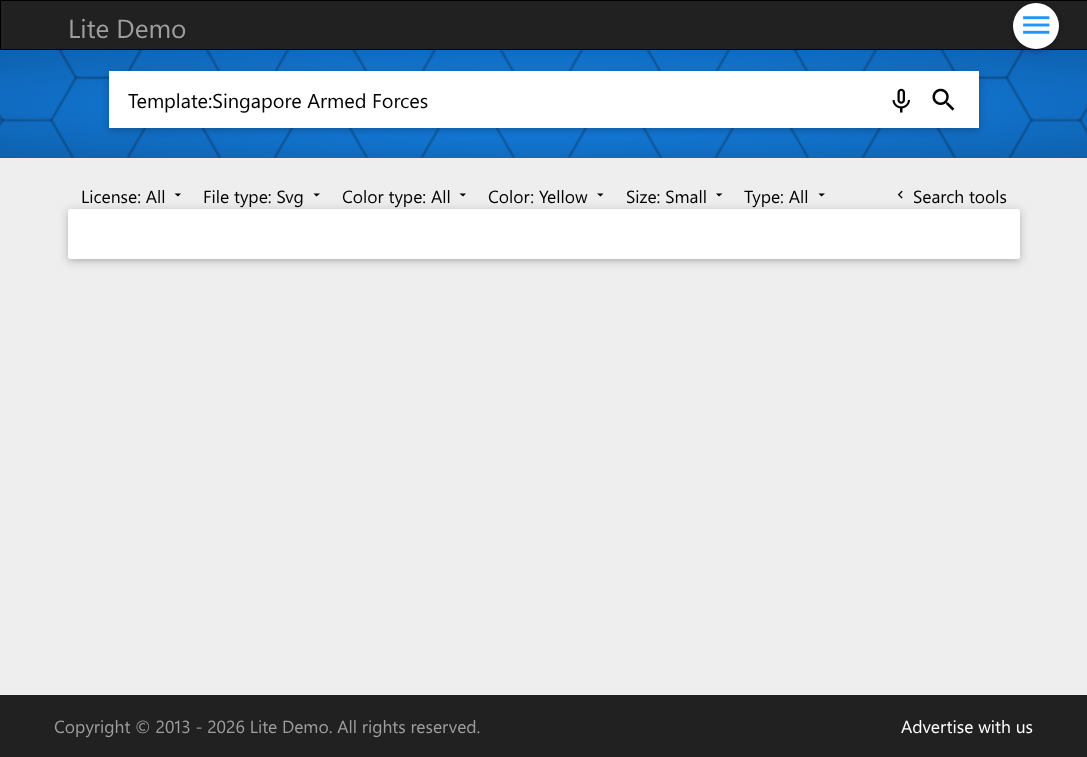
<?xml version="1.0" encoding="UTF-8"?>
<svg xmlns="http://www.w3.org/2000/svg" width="1087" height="757">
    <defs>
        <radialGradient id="g1" gradientUnits="userSpaceOnUse" cx="0" cy="0" r="1" gradientTransform="matrix(769 0 0 76 544 104)"><stop offset="0" stop-color="#1585ED"/><stop offset="1" stop-color="#0E61AE"/></radialGradient>
        <filter id="blur1" x="-50%" y="-200%" width="200%" height="500%"><feGaussianBlur stdDeviation="6"/></filter>
        <filter id="blur2" x="-50%" y="-200%" width="200%" height="500%"><feGaussianBlur stdDeviation="3"/></filter>
    </defs>
    <rect width="100%" height="100%" fill="#EEEEEE"/>
    <rect x="0.5" y="0.5" width="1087" height="49" fill="#212121" stroke="#000000"/>
    <text x="68" y="38" font-family="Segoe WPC" font-size="26.25" fill="#9E9E9E">Lite Demo</text>
    <rect x="0" y="50" width="1087" height="108" fill="url(#g1)"/>
    <image x="0" y="50" width="1087" height="108" href="img_02.png"/>
    <rect x="1013" y="5" width="46" height="46" rx="23" fill="#000000" fill-opacity="0.12" filter="url(#blur1)"/>
    <rect x="1013" y="5" width="46" height="46" rx="23" fill="#000000" fill-opacity="0.16" filter="url(#blur2)"/>
    <circle cx="1036" cy="26" r="23" fill="#FFFFFF"/>
    <image x="1023" y="16" width="27" height="18" href="img_01.png"/>
    <rect x="109" y="74" width="870" height="56" rx="2.5" fill="#000000" fill-opacity="0.12" filter="url(#blur1)"/>
    <rect x="109" y="74" width="870" height="56" rx="2.5" fill="#000000" fill-opacity="0.16" filter="url(#blur2)"/>
    <rect x="109" y="71" width="870" height="57" fill="#FFFFFF"/>
    <text x="128" y="108" font-family="Segoe WPC" font-size="20" fill="#000000">Template:Singapore Armed Forces</text>
    <image x="892" y="88" width="18" height="25" href="img_03.png"/>
    <image x="932" y="88" width="23" height="23" href="img_04.png"/>
    <text x="81" y="203" font-family="Segoe WPC" font-size="17.5" fill="#000000">License: All</text>
    <path d="M 174.5 193.5 H 181 L 178 196.5 Z" fill="#000000"/>
    <text x="203" y="203" font-family="Segoe WPC" font-size="17.5" fill="#000000">File type: Svg</text>
    <path d="M 313.5 193.5 H 320 L 316.5 196.5 Z" fill="#000000"/>
    <text x="342" y="203" font-family="Segoe WPC" font-size="17.5" fill="#000000">Color type: All</text>
    <path d="M 459.5 193.5 H 466 L 463 196.5 Z" fill="#000000"/>
    <text x="488" y="203" font-family="Segoe WPC" font-size="17.5" fill="#000000">Color: Yellow</text>
    <path d="M 597 193.5 H 603.5 L 600.5 196.5 Z" fill="#000000"/>
    <text x="626" y="203" font-family="Segoe WPC" font-size="17.5" fill="#000000">Size: Small</text>
    <path d="M 716 193.5 H 722.5 L 719 196.5 Z" fill="#000000"/>
    <text x="744" y="203" font-family="Segoe WPC" font-size="17.5" fill="#000000">Type: All</text>
    <path d="M 818.5 193.5 H 825 L 821.5 196.5 Z" fill="#000000"/>
    <image x="897" y="190" width="6" height="9" href="img_05.png"/>
    <text x="913" y="203" font-family="Segoe WPC" font-size="17.5" fill="#000000">Search tools</text>
    <rect x="68" y="211" width="952" height="50" rx="2.5" fill="#000000" fill-opacity="0.12" filter="url(#blur1)"/>
    <rect x="68" y="211" width="952" height="50" rx="2.5" fill="#000000" fill-opacity="0.16" filter="url(#blur2)"/>
    <rect x="68" y="209" width="952" height="50" rx="2.5" fill="#FFFFFF"/>
    <rect x="0" y="695" width="1087" height="62" fill="#212121"/>
    <text x="54" y="733" font-family="Segoe WPC" font-size="17.5" fill="#9E9E9E">Copyright © 2013 - 2026 Lite Demo. All rights reserved.</text>
    <text x="901" y="733" font-family="Segoe WPC" font-size="17.5" fill="#FFFFFF">Advertise with us</text>
</svg>
